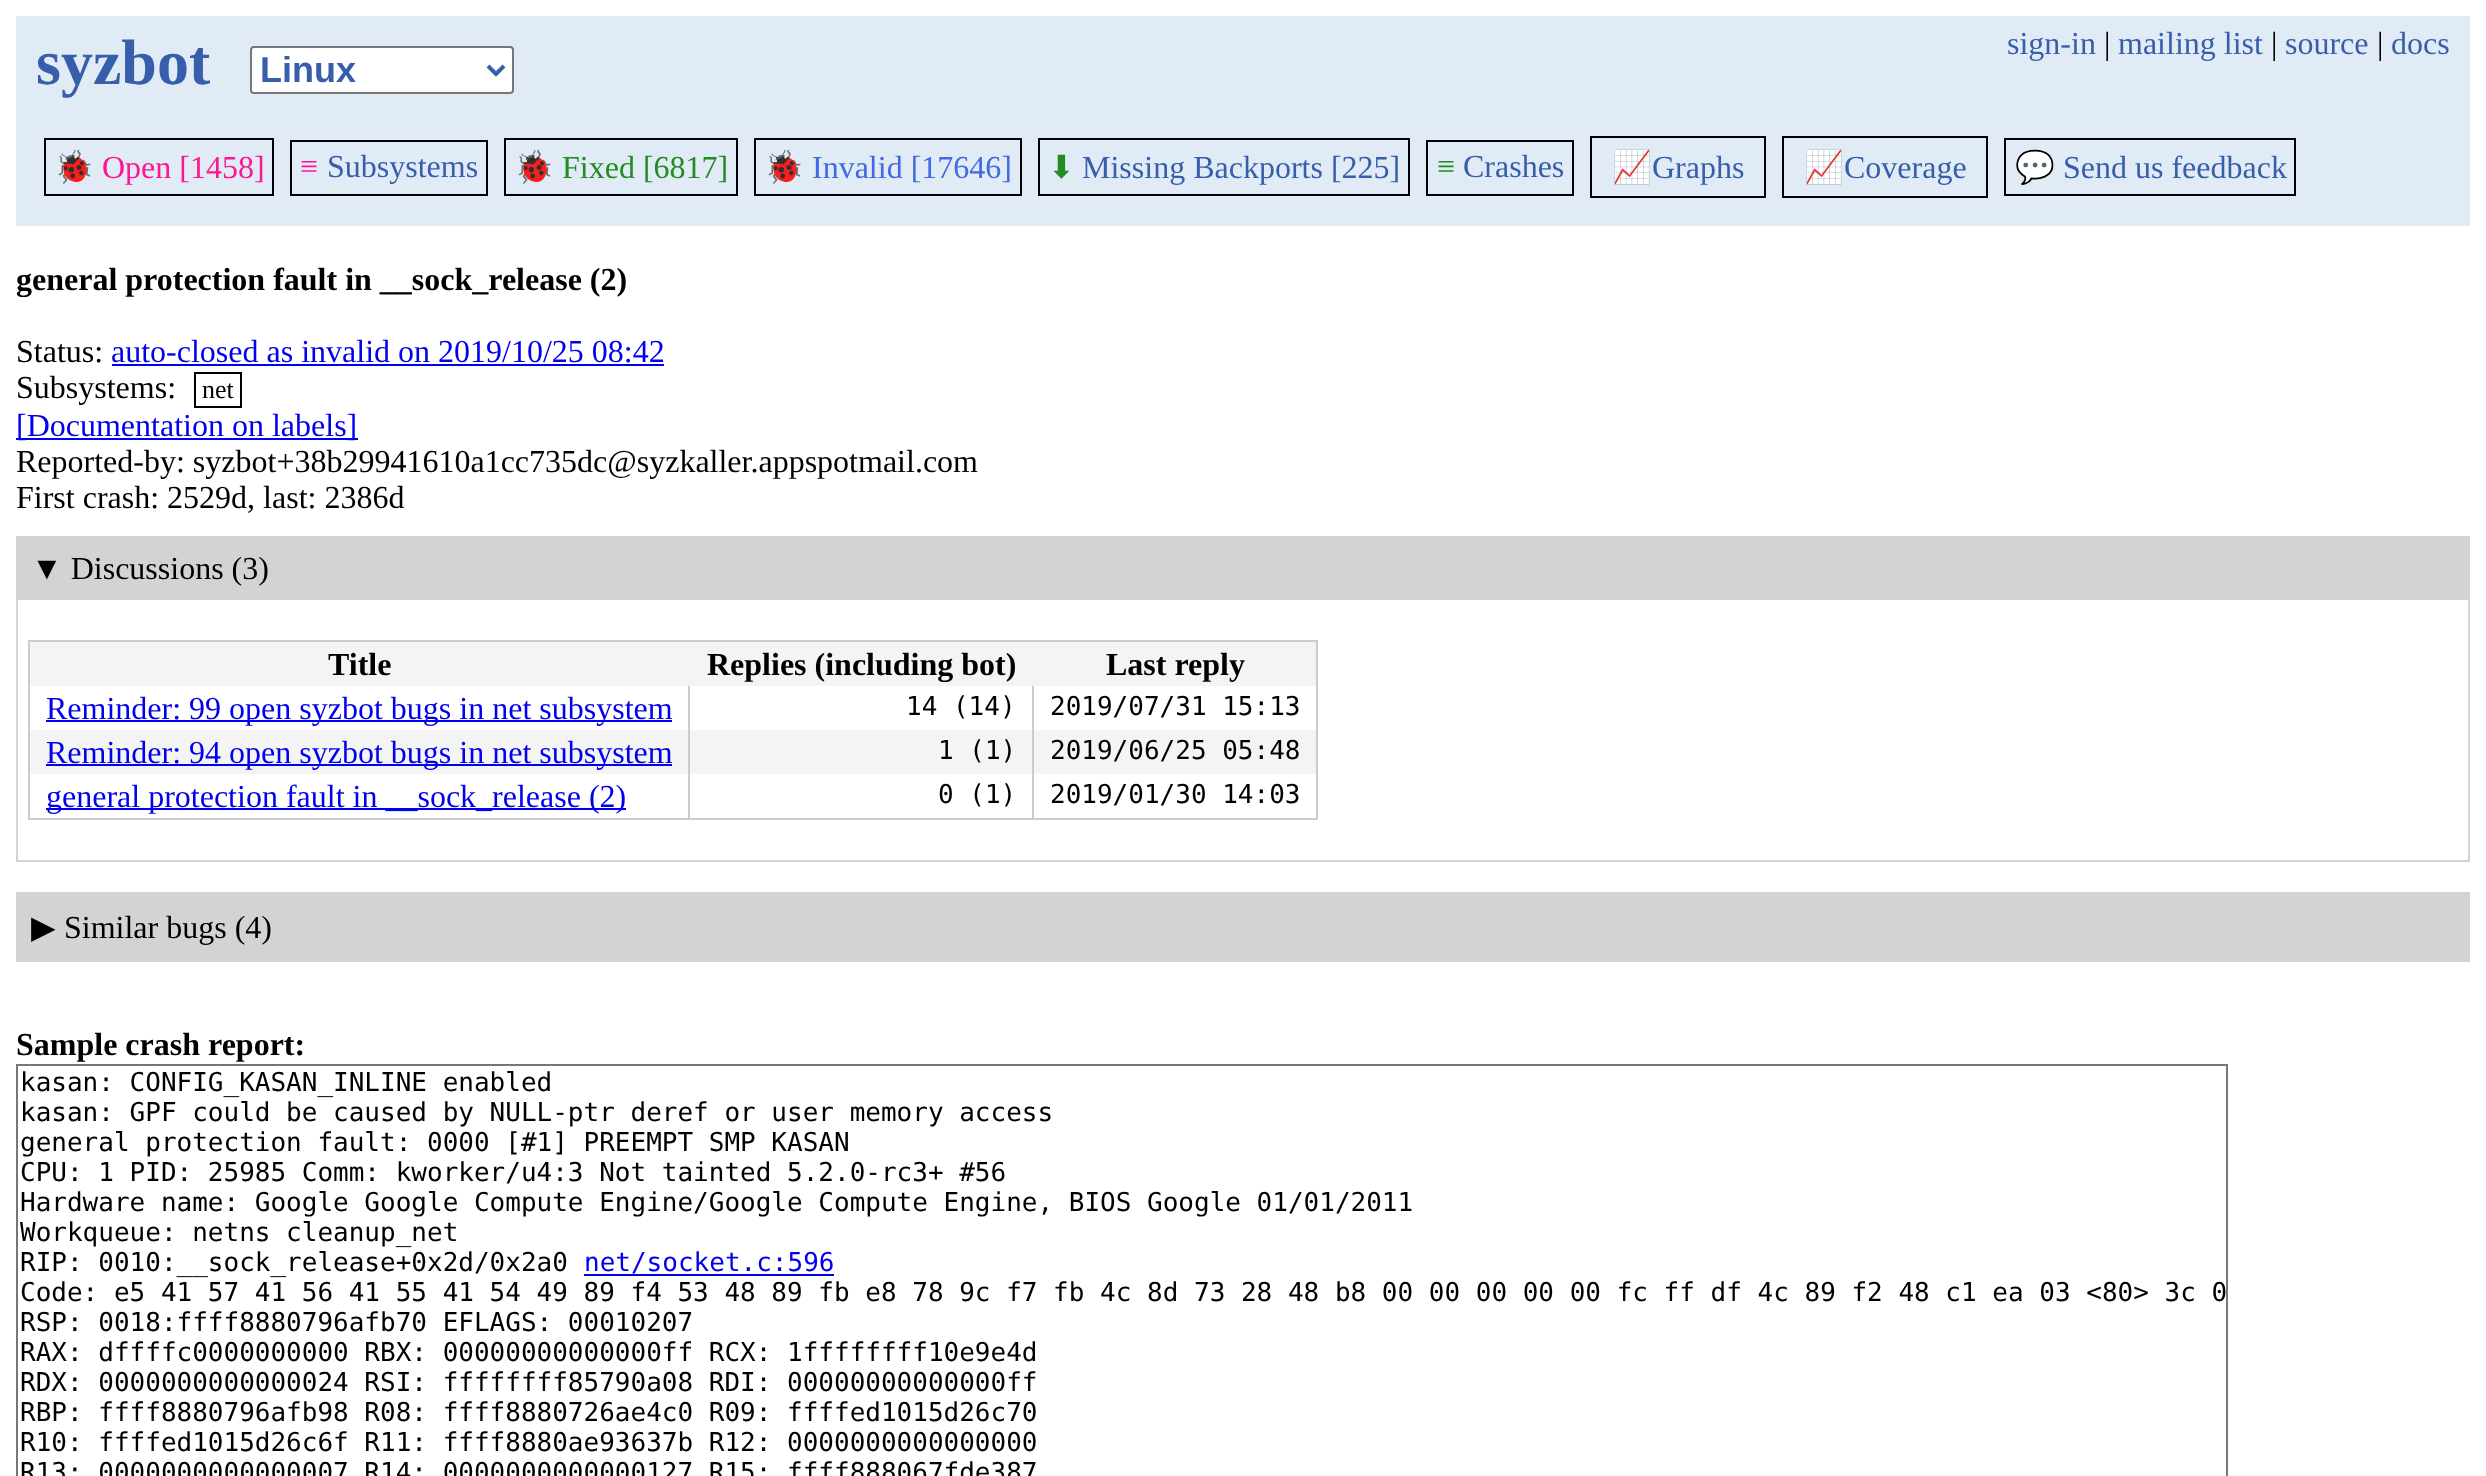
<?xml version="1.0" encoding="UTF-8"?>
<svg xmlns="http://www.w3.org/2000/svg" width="2486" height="1476">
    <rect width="100%" height="100%" fill="#FFFFFF"/>
    <rect x="16" y="16" width="2454" height="210" fill="#E0EBF5"/>
    <text x="36" y="84" font-family="Liberation Serif" font-size="64" font-weight="700" fill="#375EAB">syzbot</text>
    <rect x="251" y="47" width="262" height="46" rx="3" fill="#FFFFFF" stroke="#767676" stroke-width="2"/>
    <path d="M 488 66 L 496 74 L 504 66" fill="none" stroke="#375EAB" stroke-width="4"/>
    <text x="260" y="82" font-family="Liberation Sans" font-size="36" font-weight="700" fill="#375EAB">Linux</text>
    <text x="2007" y="54" font-family="Liberation Serif" font-size="32" fill="#375EAB">sign-in</text>
    <text x="2104" y="54" font-family="Liberation Serif" font-size="32" fill="#000000">|</text>
    <text x="2118" y="54" font-family="Liberation Serif" font-size="32" fill="#375EAB">mailing list</text>
    <text x="2271" y="54" font-family="Liberation Serif" font-size="32" fill="#000000">|</text>
    <text x="2285" y="54" font-family="Liberation Serif" font-size="32" fill="#375EAB">source</text>
    <text x="2377" y="54" font-family="Liberation Serif" font-size="32" fill="#000000">|</text>
    <text x="2391" y="54" font-family="Liberation Serif" font-size="32" fill="#375EAB">docs</text>
    <rect x="45" y="139" width="228" height="56" fill="none" stroke="#000000" stroke-width="2"/>
    <text x="54" y="178" font-family="Noto Color Emoji" font-size="32" fill="#FF1493">🐞</text>
    <text x="102" y="178" font-family="Liberation Serif" font-size="32" fill="#FF1493">Open [1458]</text>
    <rect x="291" y="141" width="196" height="54" fill="none" stroke="#000000" stroke-width="2"/>
    <text x="300" y="177" font-family="Liberation Serif" font-size="32" fill="#FF1493">≡</text>
    <text x="327" y="177" font-family="Liberation Serif" font-size="32" fill="#375EAB">Subsystems</text>
    <rect x="505" y="139" width="232" height="56" fill="none" stroke="#000000" stroke-width="2"/>
    <text x="514" y="178" font-family="Noto Color Emoji" font-size="32" fill="#228B22">🐞</text>
    <text x="562" y="178" font-family="Liberation Serif" font-size="32" fill="#228B22">Fixed [6817]</text>
    <rect x="755" y="139" width="266" height="56" fill="none" stroke="#000000" stroke-width="2"/>
    <text x="764" y="178" font-family="Noto Color Emoji" font-size="32" fill="#4169E1">🐞</text>
    <text x="812" y="178" font-family="Liberation Serif" font-size="32" fill="#4169E1">Invalid [17646]</text>
    <rect x="1039" y="139" width="370" height="56" fill="none" stroke="#000000" stroke-width="2"/>
    <text x="1048" y="178" font-family="DejaVu Sans" font-size="32" fill="#228B22">⬇</text>
    <text x="1082" y="178" font-family="Liberation Serif" font-size="32" fill="#375EAB">Missing Backports [225]</text>
    <rect x="1427" y="141" width="146" height="54" fill="none" stroke="#000000" stroke-width="2"/>
    <text x="1437" y="177" font-family="Liberation Serif" font-size="32" fill="#228B22">≡</text>
    <text x="1463" y="177" font-family="Liberation Serif" font-size="32" fill="#375EAB">Crashes</text>
    <rect x="1591" y="137" width="174" height="60" fill="none" stroke="#000000" stroke-width="2"/>
    <text x="1612" y="178" font-family="Noto Color Emoji" font-size="32" fill="#FF8C00">📈</text>
    <text x="1652" y="178" font-family="Liberation Serif" font-size="32" fill="#375EAB">Graphs</text>
    <rect x="1783" y="137" width="204" height="60" fill="none" stroke="#000000" stroke-width="2"/>
    <text x="1804" y="178" font-family="Noto Color Emoji" font-size="32" fill="#FF8C00">📈</text>
    <text x="1844" y="178" font-family="Liberation Serif" font-size="32" fill="#375EAB">Coverage</text>
    <rect x="2005" y="139" width="290" height="56" fill="none" stroke="#000000" stroke-width="2"/>
    <text x="2015" y="178" font-family="Noto Color Emoji" font-size="32" fill="#228B22">💬</text>
    <text x="2063" y="178" font-family="Liberation Serif" font-size="32" fill="#375EAB">Send us feedback</text>
    <text x="16" y="290" font-family="Liberation Serif" font-size="32" font-weight="700" fill="#000000">general protection fault in __sock_release (2)</text>
    <text x="16" y="362" font-family="Liberation Serif" font-size="32" fill="#000000">Status:</text>
    <text x="111" y="362" font-family="Liberation Serif" font-size="32" fill="#0000EE">auto-closed as invalid on 2019/10/25 08:42</text>
    <rect x="112" y="364" width="552" height="2" fill="#0000EE"/>
    <text x="16" y="398" font-family="Liberation Serif" font-size="32" fill="#000000">Subsystems:</text>
    <rect x="195" y="373" width="46" height="34" fill="none" stroke="#000000" stroke-width="2"/>
    <text x="202" y="398" font-family="Liberation Serif" font-size="26" fill="#000000">net</text>
    <rect x="16" y="438" width="342" height="2" fill="#0000EE"/>
    <text x="16" y="436" font-family="Liberation Serif" font-size="32" fill="#0000EE">[Documentation on labels]</text>
    <text font-family="Liberation Serif" font-size="32" fill="#000000">
        <tspan x="16" y="472">Reported-by: syzbot+38b29941610a1cc735dc@syzkaller.appspotmail.com</tspan>
        <tspan x="16" y="508">First crash: 2529d, last: 2386d</tspan>
    </text>
    <rect x="17" y="537" width="2452" height="324" fill="none" stroke="#D3D3D3" stroke-width="2"/>
    <rect x="18" y="538" width="2450" height="62" fill="#D3D3D3"/>
    <text x="31" y="579" font-family="Liberation Serif" font-size="32" fill="#000000">▼ Discussions (3)</text>
    <rect x="28" y="640" width="1290" height="2" fill="#CCCCCC"/>
    <rect x="1316" y="640" width="2" height="180" fill="#CCCCCC"/>
    <rect x="28" y="818" width="1290" height="2" fill="#CCCCCC"/>
    <rect x="28" y="640" width="2" height="180" fill="#CCCCCC"/>
    <rect x="30" y="642" width="1286" height="44" fill="#F4F4F4"/>
    <text x="328" y="675" font-family="Liberation Serif" font-size="32" font-weight="700" fill="#000000">Title</text>
    <text x="707" y="675" font-family="Liberation Serif" font-size="32" font-weight="700" fill="#000000">Replies (including bot)</text>
    <text x="1106" y="675" font-family="Liberation Serif" font-size="32" font-weight="700" fill="#000000">Last reply</text>
    <rect x="46" y="720" width="626" height="2" fill="#0000EE"/>
    <text x="46" y="719" font-family="Liberation Serif" font-size="32" fill="#0000EE">Reminder: 99 open syzbot bugs in net subsystem</text>
    <text x="906" y="715" font-family="DejaVu Sans Mono" font-size="26" fill="#000000">14 (14)</text>
    <text x="1050" y="715" font-family="DejaVu Sans Mono" font-size="26" fill="#000000">2019/07/31 15:13</text>
    <rect x="30" y="730" width="1286" height="44" fill="#F4F4F4"/>
    <rect x="46" y="764" width="626" height="2" fill="#0000EE"/>
    <text x="46" y="763" font-family="Liberation Serif" font-size="32" fill="#0000EE">Reminder: 94 open syzbot bugs in net subsystem</text>
    <text x="938" y="759" font-family="DejaVu Sans Mono" font-size="26" fill="#000000">1 (1)</text>
    <text x="1050" y="759" font-family="DejaVu Sans Mono" font-size="26" fill="#000000">2019/06/25 05:48</text>
    <rect x="46" y="808" width="580" height="2" fill="#0000EE"/>
    <text x="46" y="807" font-family="Liberation Serif" font-size="32" fill="#0000EE">general protection fault in __sock_release (2)</text>
    <rect x="688" y="686" width="2" height="132" fill="#CCCCCC"/>
    <text x="938" y="803" font-family="DejaVu Sans Mono" font-size="26" fill="#000000">0 (1)</text>
    <rect x="1032" y="686" width="2" height="132" fill="#CCCCCC"/>
    <text x="1050" y="803" font-family="DejaVu Sans Mono" font-size="26" fill="#000000">2019/01/30 14:03</text>
    <rect x="17" y="893" width="2452" height="68" fill="none" stroke="#D3D3D3" stroke-width="2"/>
    <rect x="18" y="894" width="2450" height="66" fill="#D3D3D3"/>
    <text x="31" y="938" font-family="DejaVu Sans" font-size="32" fill="#000000">▶</text>
    <text x="64" y="938" font-family="Liberation Serif" font-size="32" fill="#000000">Similar bugs (4)</text>
    <text x="16" y="1055" font-family="Liberation Serif" font-size="32" font-weight="700" fill="#000000">Sample crash report:</text>
    <rect x="17" y="1065" width="2210" height="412" fill="none" stroke="#777777" stroke-width="2"/>
    <text font-family="DejaVu Sans Mono" font-size="26" fill="#000000">
        <tspan x="20" y="1091">kasan: CONFIG_KASAN_INLINE enabled</tspan>
        <tspan x="20" y="1121">kasan: GPF could be caused by NULL-ptr deref or user memory access</tspan>
        <tspan x="20" y="1151">general protection fault: 0000 [#1] PREEMPT SMP KASAN</tspan>
        <tspan x="20" y="1181">CPU: 1 PID: 25985 Comm: kworker/u4:3 Not tainted 5.2.0-rc3+ #56</tspan>
        <tspan x="20" y="1211">Hardware name: Google Google Compute Engine/Google Compute Engine, BIOS Google 01/01/2011</tspan>
        <tspan x="20" y="1241">Workqueue: netns cleanup_net</tspan>
        <tspan x="20" y="1271">RIP: 0010:__sock_release+0x2d/0x2a0</tspan>
    </text>
    <text x="584" y="1271" font-family="DejaVu Sans Mono" font-size="26" fill="#0000EE">net/socket.c:596</text>
    <rect x="584" y="1274" width="250" height="2" fill="#0000EE"/>
    <text font-family="DejaVu Sans Mono" font-size="26" fill="#000000">
        <tspan x="20" y="1301">Code: e5 41 57 41 56 41 55 41 54 49 89 f4 53 48 89 fb e8 78 9c f7 fb 4c 8d 73 28 48 b8 00 00 00 00 00 fc ff df 4c 89 f2 48 c1 ea 03 &lt;80&gt; 3c 0</tspan>
        <tspan x="20" y="1331">RSP: 0018:ffff8880796afb70 EFLAGS: 00010207</tspan>
        <tspan x="20" y="1361">RAX: dffffc0000000000 RBX: 00000000000000ff RCX: 1ffffffff10e9e4d</tspan>
        <tspan x="20" y="1391">RDX: 0000000000000024 RSI: ffffffff85790a08 RDI: 00000000000000ff</tspan>
        <tspan x="20" y="1421">RBP: ffff8880796afb98 R08: ffff8880726ae4c0 R09: ffffed1015d26c70</tspan>
        <tspan x="20" y="1451">R10: ffffed1015d26c6f R11: ffff8880ae93637b R12: 0000000000000000</tspan>
        <tspan x="20" y="1481">R13: 0000000000000007 R14: 0000000000000127 R15: ffff888067fde387</tspan>
    </text>
</svg>
